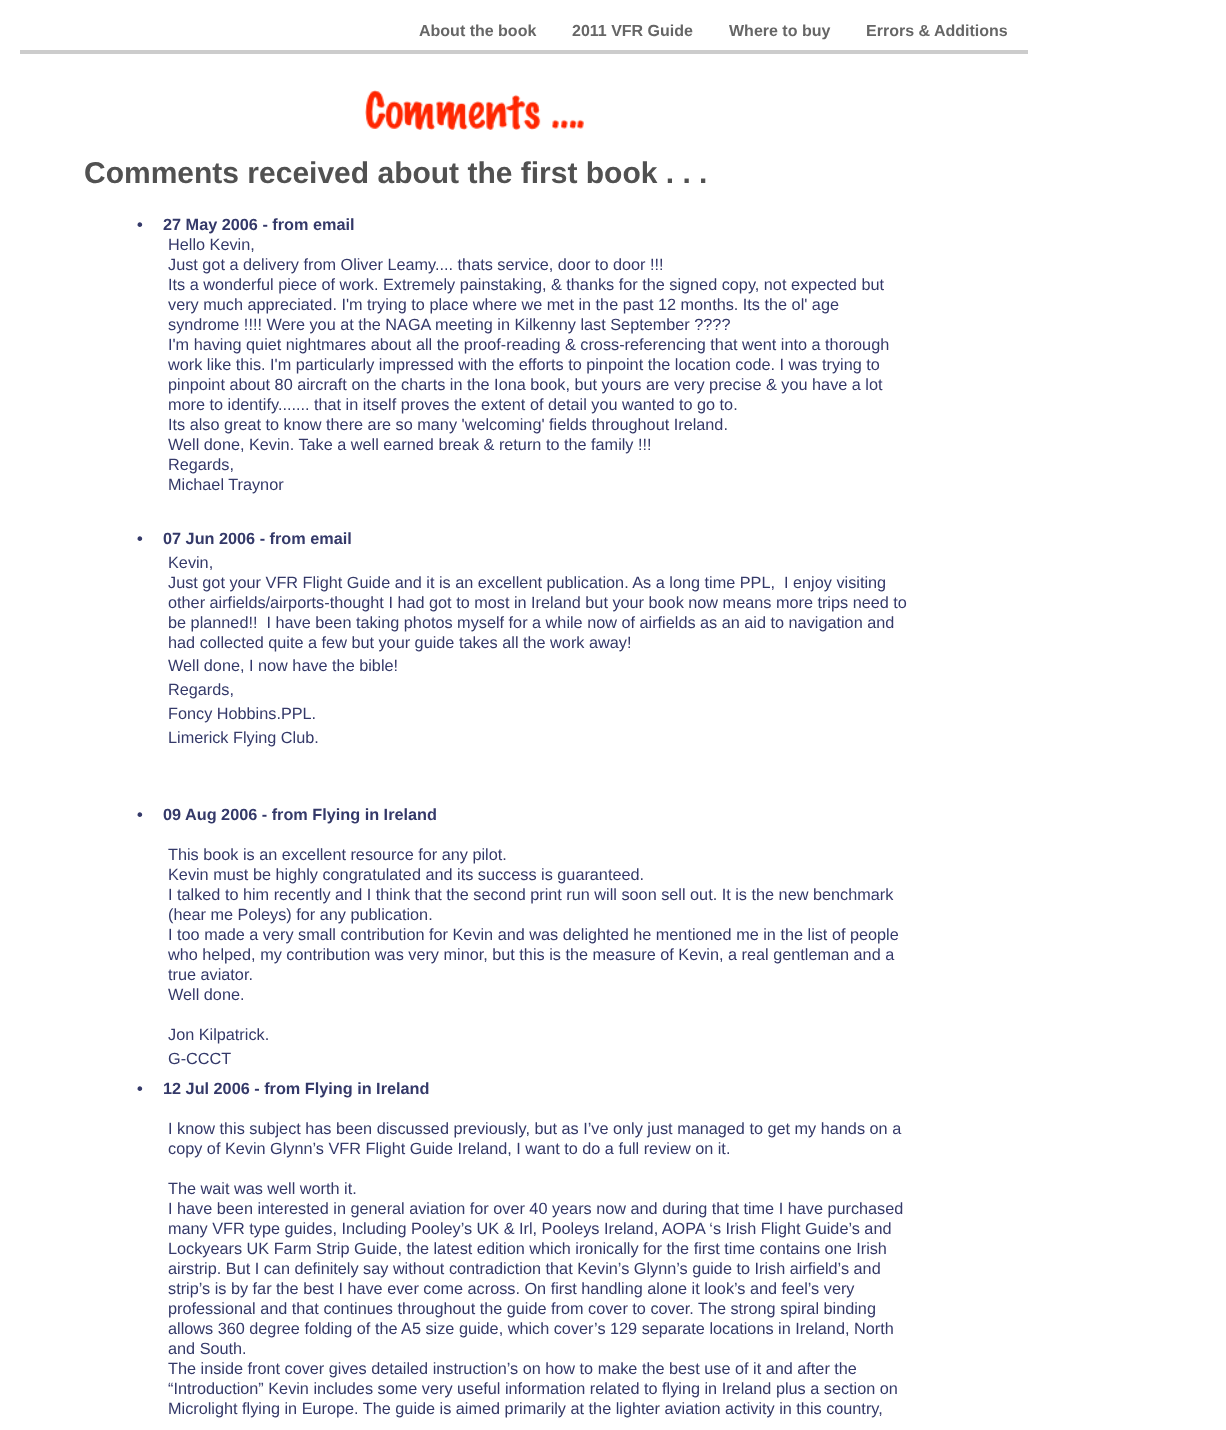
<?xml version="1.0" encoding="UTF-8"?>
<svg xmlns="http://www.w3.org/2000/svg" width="1226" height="1430">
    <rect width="100%" height="100%" fill="#FFFFFF"/>
    <rect x="20" y="50" width="1008" height="4" fill="#CCCCCC"/>
    <text x="419" y="36" font-family="Liberation Sans" font-size="16" font-weight="700" fill="#666666">About the book</text>
    <text x="572" y="36" font-family="Liberation Sans" font-size="16" font-weight="700" fill="#666666">2011 VFR Guide</text>
    <text x="729" y="36" font-family="Liberation Sans" font-size="16" font-weight="700" fill="#666666">Where to buy</text>
    <text x="866" y="36" font-family="Liberation Sans" font-size="16" font-weight="700" fill="#666666">Errors &amp; Additions</text>
    <image x="365" y="90" width="219" height="40" href="img_01.png"/>
    <text x="84" y="183" font-family="Liberation Sans" font-size="30" font-weight="700" fill="#515151">Comments received about the first book . . .</text>
    <text x="137" y="230" font-family="Liberation Sans" font-size="16.25" font-weight="700" fill="#343969">•</text>
    <text x="163" y="230" font-family="Liberation Sans" font-size="16.25" font-weight="700" fill="#343969">27 May 2006 - from email</text>
    <text font-family="Liberation Sans" font-size="16.25" fill="#343969">
        <tspan x="168" y="250">Hello Kevin,</tspan>
        <tspan x="168" y="270">Just got a delivery from Oliver Leamy.... thats service, door to door !!!</tspan>
        <tspan x="168" y="290">Its a wonderful piece of work. Extremely painstaking, &amp; thanks for the signed copy, not expected but</tspan>
        <tspan x="168" y="310">very much appreciated. I'm trying to place where we met in the past 12 months. Its the ol' age</tspan>
        <tspan x="168" y="330">syndrome !!!! Were you at the NAGA meeting in Kilkenny last September ????</tspan>
        <tspan x="168" y="350">I'm having quiet nightmares about all the proof-reading &amp; cross-referencing that went into a thorough</tspan>
        <tspan x="168" y="370">work like this. I'm particularly impressed with the efforts to pinpoint the location code. I was trying to</tspan>
        <tspan x="168" y="390">pinpoint about 80 aircraft on the charts in the Iona book, but yours are very precise &amp; you have a lot</tspan>
        <tspan x="168" y="410">more to identify....... that in itself proves the extent of detail you wanted to go to.</tspan>
        <tspan x="168" y="430">Its also great to know there are so many 'welcoming' fields throughout Ireland.</tspan>
        <tspan x="168" y="450">Well done, Kevin. Take a well earned break &amp; return to the family !!!</tspan>
        <tspan x="168" y="470">Regards,</tspan>
        <tspan x="168" y="490">Michael Traynor</tspan>
    </text>
    <text x="137" y="544" font-family="Liberation Sans" font-size="16.25" font-weight="700" fill="#343969">•</text>
    <text x="163" y="544" font-family="Liberation Sans" font-size="16.25" font-weight="700" fill="#343969">07 Jun 2006 - from email</text>
    <text font-family="Liberation Sans" font-size="16.25" fill="#343969" xml:space="preserve"><tspan x="168" y="568">Kevin,</tspan><tspan x="168" y="588">Just got your VFR Flight Guide and it is an excellent publication. As a long time PPL,  I enjoy visiting</tspan><tspan x="168" y="608">other airfields/airports-thought I had got to most in Ireland but your book now means more trips need to</tspan><tspan x="168" y="628">be planned!!  I have been taking photos myself for a while now of airfields as an aid to navigation and</tspan><tspan x="168" y="648">had collected quite a few but your guide takes all the work away!</tspan><tspan x="168" y="671">Well done, I now have the bible!</tspan><tspan x="168" y="695">Regards,</tspan><tspan x="168" y="719">Foncy Hobbins.PPL.</tspan><tspan x="168" y="743">Limerick Flying Club.</tspan></text>
    <text x="137" y="820" font-family="Liberation Sans" font-size="16.25" font-weight="700" fill="#343969">•</text>
    <text x="163" y="820" font-family="Liberation Sans" font-size="16.25" font-weight="700" fill="#343969">09 Aug 2006 - from Flying in Ireland</text>
    <text font-family="Liberation Sans" font-size="16.25" fill="#343969">
        <tspan x="168" y="860">This book is an excellent resource for any pilot.</tspan>
        <tspan x="168" y="880">Kevin must be highly congratulated and its success is guaranteed.</tspan>
        <tspan x="168" y="900">I talked to him recently and I think that the second print run will soon sell out. It is the new benchmark</tspan>
        <tspan x="168" y="920">(hear me Poleys) for any publication.</tspan>
        <tspan x="168" y="940">I too made a very small contribution for Kevin and was delighted he mentioned me in the list of people</tspan>
        <tspan x="168" y="960">who helped, my contribution was very minor, but this is the measure of Kevin, a real gentleman and a</tspan>
        <tspan x="168" y="980">true aviator.</tspan>
        <tspan x="168" y="1000">Well done.</tspan>
    </text>
    <text font-family="Liberation Sans" font-size="16.25" fill="#343969">
        <tspan x="168" y="1040">Jon Kilpatrick.</tspan>
        <tspan x="168" y="1064">G-CCCT</tspan>
    </text>
    <text x="137" y="1094" font-family="Liberation Sans" font-size="16.25" font-weight="700" fill="#343969">•</text>
    <text x="163" y="1094" font-family="Liberation Sans" font-size="16.25" font-weight="700" fill="#343969">12 Jul 2006 - from Flying in Ireland</text>
    <text font-family="Liberation Sans" font-size="16.25" fill="#343969">
        <tspan x="168" y="1134">I know this subject has been discussed previously, but as I’ve only just managed to get my hands on a</tspan>
        <tspan x="168" y="1154">copy of Kevin Glynn’s VFR Flight Guide Ireland, I want to do a full review on it.</tspan>
    </text>
    <text font-family="Liberation Sans" font-size="16.25" fill="#343969">
        <tspan x="168" y="1194">The wait was well worth it.</tspan>
        <tspan x="168" y="1214">I have been interested in general aviation for over 40 years now and during that time I have purchased</tspan>
        <tspan x="168" y="1234">many VFR type guides, Including Pooley’s UK &amp; Irl, Pooleys Ireland, AOPA ‘s Irish Flight Guide’s and</tspan>
        <tspan x="168" y="1254">Lockyears UK Farm Strip Guide, the latest edition which ironically for the first time contains one Irish</tspan>
        <tspan x="168" y="1274">airstrip. But I can definitely say without contradiction that Kevin’s Glynn’s guide to Irish airfield’s and</tspan>
        <tspan x="168" y="1294">strip’s is by far the best I have ever come across. On first handling alone it look’s and feel’s very</tspan>
        <tspan x="168" y="1314">professional and that continues throughout the guide from cover to cover. The strong spiral binding</tspan>
        <tspan x="168" y="1334">allows 360 degree folding of the A5 size guide, which cover’s 129 separate locations in Ireland, North</tspan>
        <tspan x="168" y="1354">and South.</tspan>
        <tspan x="168" y="1374">The inside front cover gives detailed instruction’s on how to make the best use of it and after the</tspan>
        <tspan x="168" y="1394">“Introduction” Kevin includes some very useful information related to flying in Ireland plus a section on</tspan>
        <tspan x="168" y="1414">Microlight flying in Europe. The guide is aimed primarily at the lighter aviation activity in this country,</tspan>
    </text>
</svg>
